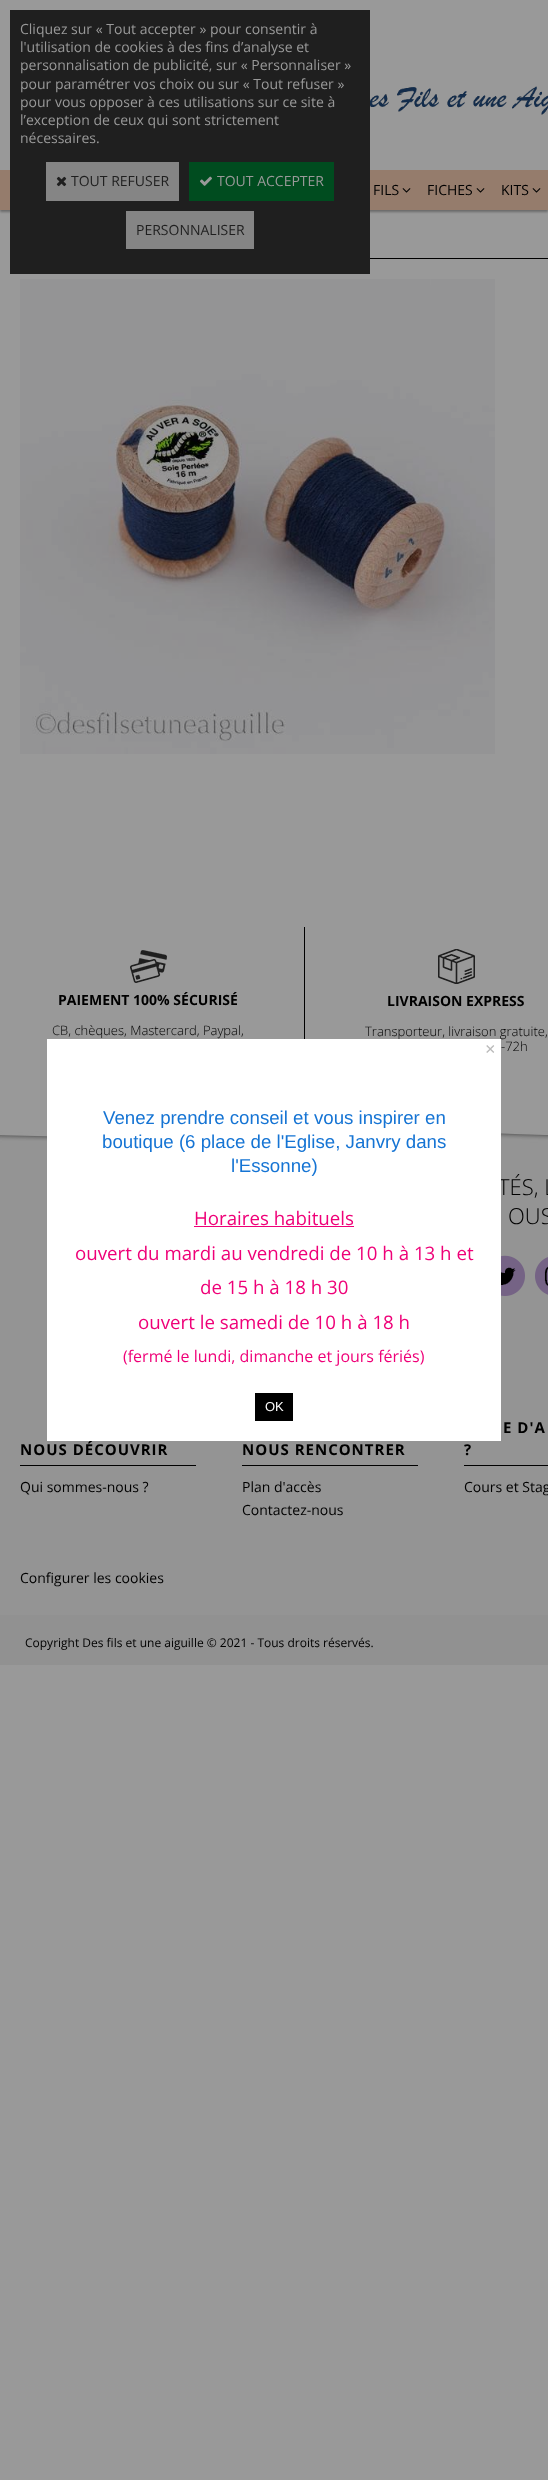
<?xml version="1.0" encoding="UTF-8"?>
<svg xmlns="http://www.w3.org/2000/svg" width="548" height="2480">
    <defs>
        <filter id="blur1" x="-50%" y="-200%" width="200%" height="500%"><feGaussianBlur stdDeviation="1"/></filter>
    </defs>
    <rect width="100%" height="100%" fill="#999999"/>
    <rect x="0" y="172" width="548" height="40" fill="#000000" fill-opacity="0.3" filter="url(#blur1)"/>
    <rect x="0" y="170" width="548" height="40" fill="#957C6C"/>
    <rect x="10" y="10" width="360" height="264" fill="#1F1F1F"/>
    <text font-family="Open Sans" font-size="14" fill="#999999">
        <tspan x="20" y="34">Cliquez sur « Tout accepter » pour consentir à</tspan>
        <tspan x="20" y="52">l'utilisation de cookies à des fins d’analyse et</tspan>
        <tspan x="20" y="70">personnalisation de publicité, sur « Personnaliser »</tspan>
        <tspan x="20" y="89">pour paramétrer vos choix ou sur « Tout refuser »</tspan>
        <tspan x="20" y="107">pour vous opposer à ces utilisations sur ce site à</tspan>
        <tspan x="20" y="125">l’exception de ceux qui sont strictement</tspan>
        <tspan x="20" y="143">nécessaires.</tspan>
    </text>
    <rect x="46" y="162" width="133" height="39" fill="#858585"/>
    <image x="56" y="176" width="11" height="11" href="img_01.png"/>
    <text x="71" y="186" font-family="Open Sans" font-size="14" fill="#1F1F1F">TOUT REFUSER</text>
    <rect x="189" y="162" width="145" height="39" fill="#004C1F"/>
    <image x="200" y="176" width="12" height="10" href="img_02.png"/>
    <text x="217" y="186" font-family="Open Sans" font-size="14" fill="#999999">TOUT ACCEPTER</text>
    <rect x="126" y="211" width="128" height="38" fill="#858585"/>
    <text x="136" y="235" font-family="Open Sans" font-size="14" fill="#1F1F1F">PERSONNALISER</text>
    <image x="370" y="86" width="178" height="29" href="img_03.png"/>
    <text x="373" y="195" font-family="Open Sans" font-size="14" fill="#000000">FILS</text>
    <image x="402" y="188" width="9" height="5" href="img_04.png"/>
    <text x="427" y="195" font-family="Open Sans" font-size="14" fill="#000000">FICHES</text>
    <image x="476" y="188" width="9" height="5" href="img_04.png"/>
    <text x="501" y="195" font-family="Open Sans" font-size="14" fill="#000000">KITS</text>
    <image x="532" y="188" width="9" height="5" href="img_04.png"/>
    <rect x="370" y="258" width="178" height="1" fill="#000000"/>
    <image x="20" y="279" width="475" height="475" href="img_05.png"/>
    <image x="130" y="950" width="37" height="33" href="img_06.png"/>
    <text x="58" y="1005" font-family="Open Sans" font-size="14" font-weight="700" fill="#000000">PAIEMENT 100% SÉCURISÉ</text>
    <text x="52" y="1035" font-family="Open Sans" font-size="13" font-weight="300" fill="#000000">CB, chèques, Mastercard, Paypal,</text>
    <rect x="304" y="927" width="1" height="112" fill="#000000"/>
    <image x="438" y="949" width="37" height="35" href="img_07.png"/>
    <text x="387" y="1006" font-family="Open Sans" font-size="14" font-weight="700" fill="#000000">LIVRAISON EXPRESS</text>
    <text x="365" y="1036" font-family="Open Sans" font-size="13" font-weight="300" fill="#000000">Transporteur, livraison gratuite,</text>
    <text x="501" y="1051" font-family="Open Sans" font-size="13" font-weight="300" fill="#000000">-72h</text>
    <rect x="0" y="1143" width="548" height="472" fill="#949494"/>
    <image x="0" y="1107" width="548" height="36" href="img_08.png"/>
    <text x="498" y="1195" font-family="Open Sans" font-size="22" font-weight="300" fill="#000000">TÉS, L</text>
    <text x="508" y="1224" font-family="Open Sans" font-size="22" font-weight="300" fill="#000000">OUS</text>
    <image x="501" y="1255" width="24" height="41" href="img_09.png"/>
    <image x="535" y="1257" width="13" height="38" href="img_10.png"/>
    <rect x="20" y="1465" width="176" height="1" fill="#000000"/>
    <text x="20" y="1455" font-family="Open Sans" font-size="15" font-weight="700" letter-spacing="1" fill="#000000">NOUS DÉCOUVRIR</text>
    <rect x="242" y="1465" width="176" height="1" fill="#000000"/>
    <text x="242" y="1455" font-family="Open Sans" font-size="15" font-weight="700" letter-spacing="1" fill="#000000">NOUS RENCONTRER</text>
    <rect x="464" y="1465" width="84" height="1" fill="#000000"/>
    <text x="503" y="1433" font-family="Open Sans" font-size="15" font-weight="700" letter-spacing="1" fill="#000000">E D'A</text>
    <text x="464" y="1455" font-family="Open Sans" font-size="15" font-weight="700" letter-spacing="1" fill="#000000">?</text>
    <text x="20" y="1492" font-family="Open Sans" font-size="14" fill="#000000">Qui sommes-nous ?</text>
    <text x="242" y="1492" font-family="Open Sans" font-size="14" fill="#000000">Plan d'accès</text>
    <text x="464" y="1492" font-family="Open Sans" font-size="14" fill="#000000">Cours et Stag</text>
    <text x="242" y="1515" font-family="Open Sans" font-size="14" fill="#000000">Contactez-nous</text>
    <text x="20" y="1583" font-family="Open Sans" font-size="14" fill="#000000">Configurer les cookies</text>
    <rect x="0" y="1615" width="548" height="50" fill="#919191"/>
    <text x="25" y="1647" font-family="Open Sans" font-size="12" fill="#000000">Copyright Des fils et une aiguille © 2021 - Tous droits réservés.</text>
    <rect x="47" y="1039" width="454" height="402" fill="#FFFFFF"/>
    <text x="485" y="1055" font-family="Liberation Sans" font-size="18" fill="#BBBBBB">×</text>
    <text x="103" y="1124" font-family="Liberation Sans" font-size="18.7" fill="#1574D4">Venez prendre conseil et vous inspirer en</text>
    <text x="102" y="1148" font-family="Liberation Sans" font-size="18.7" fill="#1574D4">boutique (6 place de l'Eglise, Janvry dans</text>
    <text x="231" y="1172" font-family="Liberation Sans" font-size="18.7" fill="#1574D4">l'Essonne)</text>
    <text x="194" y="1225" font-family="Open Sans" font-size="18.7" fill="#EF0078">Horaires habituels</text>
    <rect x="194" y="1226" width="160" height="1" fill="#EF0078"/>
    <text x="75" y="1260" font-family="Open Sans" font-size="18.7" fill="#EF0078">ouvert du mardi au vendredi de 10 h à 13 h et</text>
    <text x="200" y="1294" font-family="Open Sans" font-size="18.7" fill="#EF0078">de 15 h à 18 h 30</text>
    <text x="138" y="1329" font-family="Open Sans" font-size="18.7" fill="#EF0078">ouvert le samedi de 10 h à 18 h</text>
    <text x="123" y="1362" font-family="Open Sans" font-size="16" fill="#EF0078">(fermé le lundi, dimanche et jours fériés)</text>
    <rect x="255" y="1393" width="38" height="28" fill="#000000"/>
    <text x="265" y="1411" font-family="Liberation Sans" font-size="13" fill="#FFFFFF">OK</text>
</svg>
